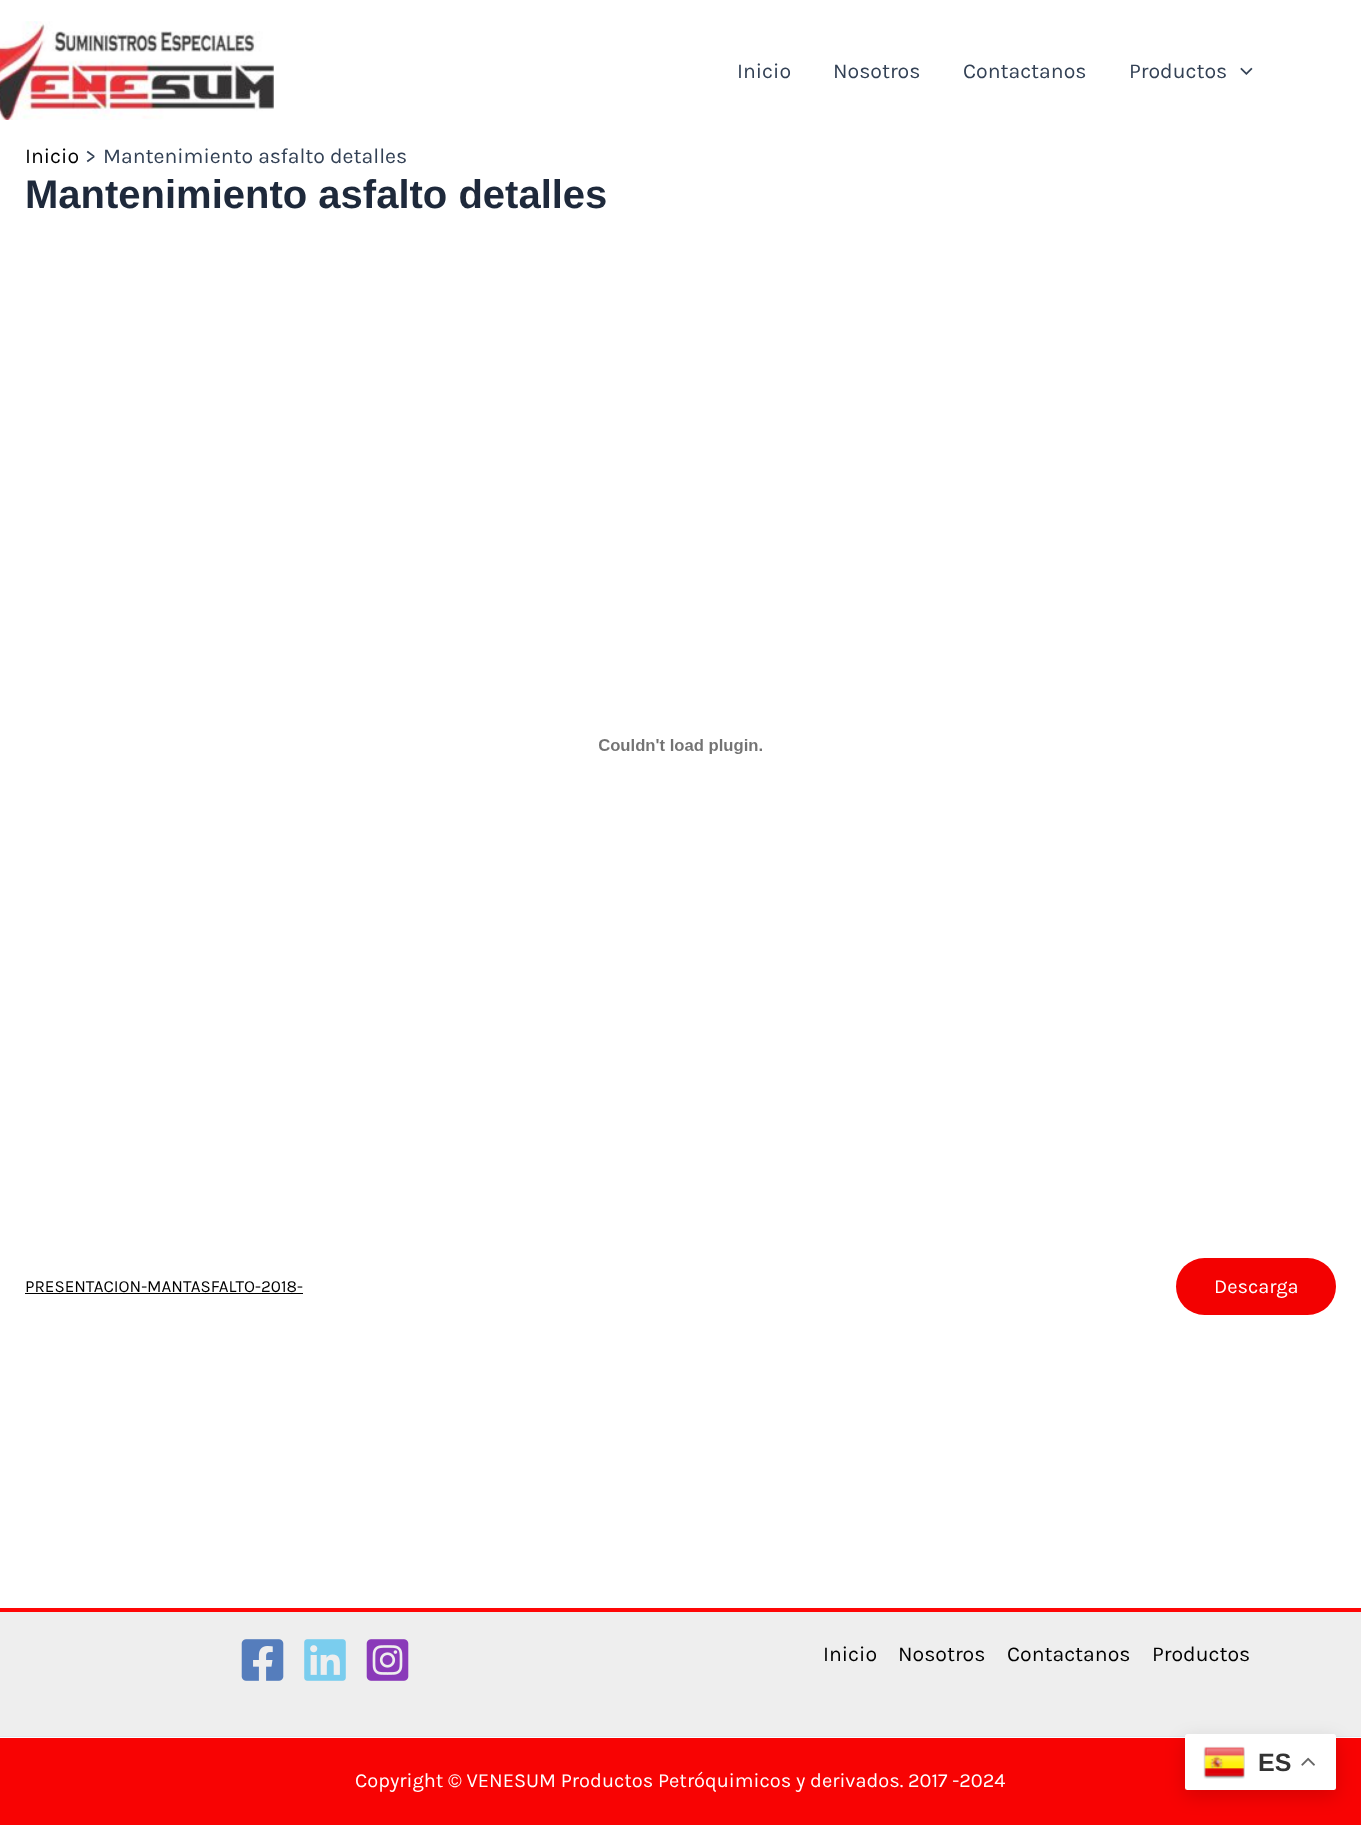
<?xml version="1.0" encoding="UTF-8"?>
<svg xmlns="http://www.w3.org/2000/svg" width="1361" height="1825">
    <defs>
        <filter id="blur1" x="-50%" y="-200%" width="200%" height="500%"><feGaussianBlur stdDeviation="9.5"/></filter>
    </defs>
    <rect width="100%" height="100%" fill="#FFFFFF"/>
    <image x="0" y="21" width="274" height="99" href="img_01.png"/>
    <text x="737" y="78" font-family="Karla" font-size="21.25" fill="#334155">Inicio</text>
    <text x="833" y="78" font-family="Karla" font-size="21.25" fill="#334155">Nosotros</text>
    <text x="963" y="78" font-family="Karla" font-size="21.25" fill="#334155">Contactanos</text>
    <text x="1129" y="78" font-family="Karla" font-size="21.25" fill="#334155">Productos</text>
    <image x="1240" y="67" width="13" height="8" href="img_02.png"/>
    <text x="25" y="163" font-family="Karla" font-size="21.25" fill="#000000">Inicio</text>
    <text x="85" y="163" font-family="Karla" font-size="21.25" fill="#334155">&gt;</text>
    <text x="103" y="163" font-family="Karla" font-size="21.25" fill="#334155">Mantenimiento asfalto detalles</text>
    <text x="25" y="208" font-family="Liberation Sans" font-size="40" font-weight="700" fill="#1E293B">Mantenimiento asfalto detalles</text>
    <image x="599" y="739" width="163" height="15" href="img_03.png"/>
    <text x="25" y="1292" font-family="Karla" font-size="17" fill="#000000">PRESENTACION-MANTASFALTO-2018-</text>
    <rect x="25" y="1293" width="278" height="1" fill="#000000"/>
    <rect x="1176" y="1258" width="160" height="57" rx="28.5" fill="#F30101"/>
    <text x="1214" y="1293" font-family="Karla" font-size="20" fill="#FFFFFF">Descarga</text>
    <rect x="0" y="1612" width="1361" height="124" fill="#EEEEEE"/>
    <rect x="0" y="1608" width="1361" height="4" fill="#FF0606"/>
    <image x="241" y="1639" width="43" height="42" href="img_04.png"/>
    <image x="304" y="1639" width="42" height="42" href="img_05.png"/>
    <image x="366" y="1639" width="43" height="42" href="img_06.png"/>
    <text x="823" y="1661" font-family="Karla" font-size="21.25" fill="#000000">Inicio</text>
    <text x="898" y="1661" font-family="Karla" font-size="21.25" fill="#000000">Nosotros</text>
    <text x="1007" y="1661" font-family="Karla" font-size="21.25" fill="#000000">Contactanos</text>
    <text x="1152" y="1661" font-family="Karla" font-size="21.25" fill="#000000">Productos</text>
    <rect x="0" y="1738" width="1361" height="87" fill="#F80303"/>
    <rect x="0" y="1736" width="1361" height="1" fill="#E2E8F0"/>
    <text x="355" y="1787" font-family="Karla" font-size="20" fill="#FFFFFF">Copyright © VENESUM Productos Petróquimicos y derivados. 2017 -2024</text>
    <rect x="1185" y="1740" width="151" height="56" rx="2.5" fill="#000000" fill-opacity="0.15" filter="url(#blur1)"/>
    <rect x="1185" y="1734" width="151" height="56" rx="2.5" fill="#FFFFFF"/>
    <image x="1203" y="1746" width="42" height="33" href="img_07.png"/>
    <text x="1258" y="1771" font-family="Liberation Sans" font-size="25" font-weight="700" fill="#333333">ES</text>
    <image x="1301" y="1757" width="14" height="9" href="img_08.png"/>
</svg>
